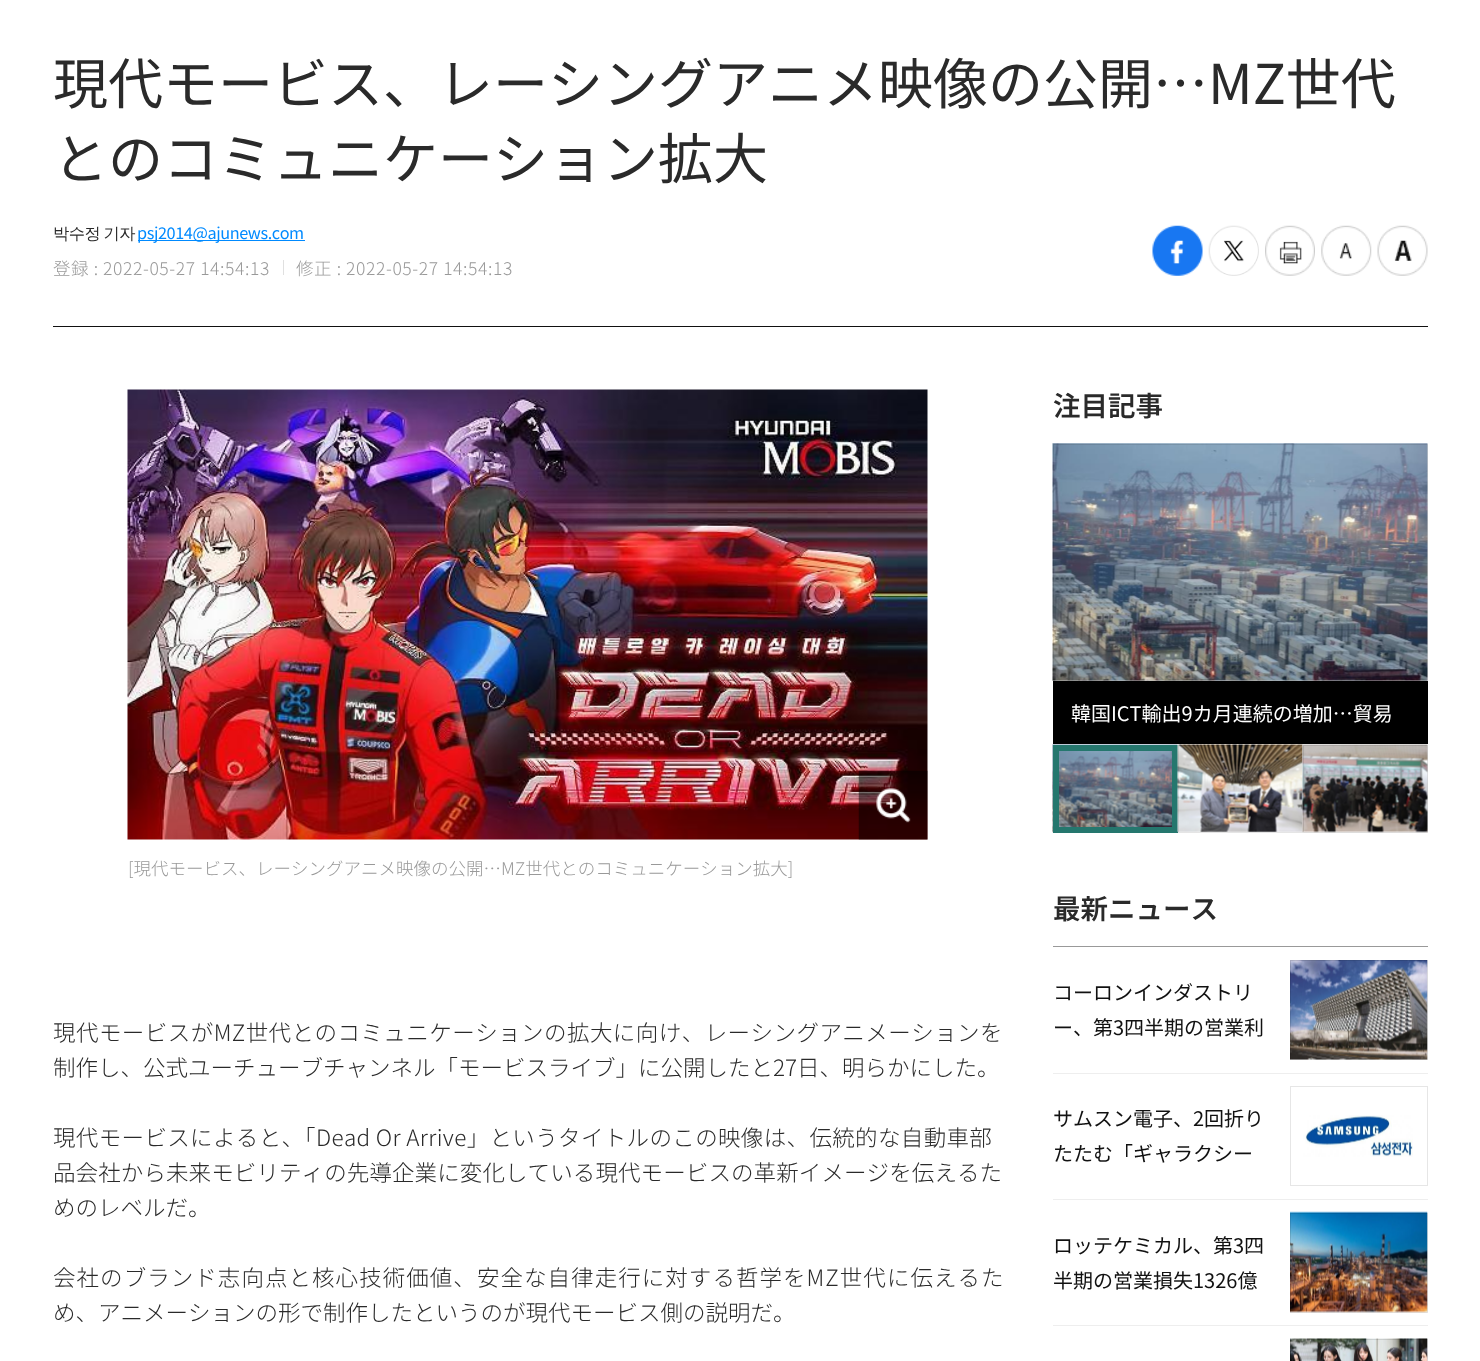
<?xml version="1.0" encoding="UTF-8"?>
<svg xmlns="http://www.w3.org/2000/svg" width="1480" height="1361">
    <style>*{font-kerning:none!important;font-variant-ligatures:none!important}</style>
    <rect width="100%" height="100%" fill="#FFFFFF"/>
    <rect x="53" y="326" width="1375" height="1" fill="#111111"/>
    <text font-family="Noto Sans JP" font-size="55" fill="#2A2A2A">
        <tspan x="53" y="104">現代モービス、レーシングアニメ映像の公開…MZ世代</tspan>
        <tspan x="53" y="179">とのコミュニケーション拡大</tspan>
    </text>
    <text x="53" y="239" word-spacing="-1" font-family="WenQuanYi Zen Hei" font-size="16.25" font-weight="500" letter-spacing="-0.5" fill="#2A2A2A">박수정 기자</text>
    <rect x="138" y="240" width="167" height="1" fill="#008AFF"/>
    <text x="137" y="239" font-family="Noto Sans JP" font-size="16.25" letter-spacing="-0.4" fill="#008AFF">psj2014@ajunews.com</text>
    <text x="53" y="275" font-family="Noto Sans JP" font-size="17.5" font-weight="300" letter-spacing="0.6" fill="#999999">登録 : 2022-05-27 14:54:13</text>
    <rect x="283" y="260" width="1" height="15" fill="#E0E0E0"/>
    <text x="296" y="275" font-family="Noto Sans JP" font-size="17.5" font-weight="300" letter-spacing="0.6" fill="#999999">修正 : 2022-05-27 14:54:13</text>
    <image x="1152" y="225" width="51" height="51" href="img_01.png"/>
    <image x="1208" y="225" width="51" height="51" href="img_02.png"/>
    <image x="1265" y="225" width="50" height="51" href="img_03.png"/>
    <image x="1321" y="225" width="51" height="51" href="img_04.png"/>
    <image x="1377" y="225" width="51" height="51" href="img_05.png"/>
    <image x="127" y="389" width="801" height="451" href="img_06.png"/>
    <image x="858" y="770" width="70" height="70" href="img_07.png"/>
    <text x="128" y="875" font-family="Noto Sans JP" font-size="17.5" font-weight="300" fill="#999999">[現代モービス、レーシングアニメ映像の公開…MZ世代とのコミュニケーション拡大]</text>
    <text x="53" y="1041" font-family="Noto Sans JP" font-size="22.5" font-weight="300" letter-spacing="0.45" fill="#2A2A2A">現代モービスがMZ世代とのコミュニケーションの拡大に向け、レーシングアニメーションを</text>
    <text x="53" y="1076" font-family="Noto Sans JP" font-size="22.5" font-weight="300" fill="#2A2A2A">制作し、公式ユーチューブチャンネル「モービスライブ」に公開したと27日、明らかにした。</text>
    <text x="53" y="1146" font-family="Noto Sans JP" font-size="22.5" font-weight="300" letter-spacing="0.35" fill="#2A2A2A">現代モービスによると、「Dead Or Arrive」というタイトルのこの映像は、伝統的な自動車部</text>
    <text x="53" y="1181" font-family="Noto Sans JP" font-size="22.5" font-weight="300" letter-spacing="0.1" fill="#2A2A2A">品会社から未来モビリティの先導企業に変化している現代モービスの革新イメージを伝えるた</text>
    <text x="53" y="1216" font-family="Noto Sans JP" font-size="22.5" font-weight="300" fill="#2A2A2A">めのレベルだ。</text>
    <text x="53" y="1286" font-family="Noto Sans JP" font-size="22.5" font-weight="300" letter-spacing="1.05" fill="#2A2A2A">会社のブランド志向点と核心技術価値、安全な自律走行に対する哲学をMZ世代に伝えるた</text>
    <text x="53" y="1321" font-family="Noto Sans JP" font-size="22.5" font-weight="300" fill="#2A2A2A">め、アニメーションの形で制作したというのが現代モービス側の説明だ。</text>
    <text x="1053" y="416" font-family="Noto Sans JP" font-size="27.5" font-weight="600" fill="#2A2A2A">注目記事</text>
    <image x="1052" y="443" width="376" height="238" href="img_08.png"/>
    <rect x="1053.5" y="444.5" width="374" height="236" fill="none" stroke="#000000" stroke-opacity="0.1"/>
    <rect x="1053" y="681" width="375" height="63" fill="#000000"/>
    <text x="1071" y="721" font-family="Noto Sans JP" font-size="20" fill="#FFFFFF">韓国ICT輸出9カ月連続の増加…貿易</text>
    <image x="1052" y="744" width="126" height="89" href="img_09.png"/>
    <rect x="1056" y="748" width="119" height="82" fill="none" stroke="#25776E" stroke-width="6"/>
    <image x="1177" y="744" width="126" height="88" href="img_10.png"/>
    <rect x="1178.5" y="745.5" width="124" height="87" fill="none" stroke="#000000" stroke-opacity="0.1"/>
    <image x="1302" y="744" width="126" height="89" href="img_11.png"/>
    <rect x="1303.5" y="745.5" width="124" height="87" fill="none" stroke="#000000" stroke-opacity="0.1"/>
    <rect x="1053" y="946" width="375" height="1" fill="#999999"/>
    <text x="1053" y="919" font-family="Noto Sans JP" font-size="27.5" font-weight="600" fill="#2A2A2A">最新ニュース</text>
    <rect x="1053" y="1073" width="375" height="1" fill="#EEEEEE"/>
    <text font-family="Noto Sans JP" font-size="20" fill="#111111">
        <tspan x="1053" y="1000">コーロンインダストリ</tspan>
        <tspan x="1053" y="1035">ー、第3四半期の営業利</tspan>
    </text>
    <image x="1290" y="960" width="138" height="100" href="img_12.png"/>
    <rect x="1290.5" y="960.5" width="137" height="99" fill="none" stroke="#000000" stroke-opacity="0.1"/>
    <rect x="1053" y="1199" width="375" height="1" fill="#EEEEEE"/>
    <text font-family="Noto Sans JP" font-size="20" fill="#111111">
        <tspan x="1053" y="1126">サムスン電子、2回折り</tspan>
        <tspan x="1053" y="1161">たたむ「ギャラクシー</tspan>
    </text>
    <image x="1303" y="1115" width="110" height="42" href="img_13.png"/>
    <rect x="1290.5" y="1086.5" width="137" height="99" fill="none" stroke="#E6E6E6"/>
    <rect x="1053" y="1325" width="375" height="1" fill="#EEEEEE"/>
    <text font-family="Noto Sans JP" font-size="20" fill="#111111">
        <tspan x="1053" y="1253">ロッテケミカル、第3四</tspan>
        <tspan x="1053" y="1288">半期の営業損失1326億</tspan>
    </text>
    <image x="1290" y="1211" width="138" height="102" href="img_14.png"/>
    <rect x="1290.5" y="1213.5" width="137" height="99" fill="none" stroke="#000000" stroke-opacity="0.1"/>
    <image x="1290" y="1338" width="138" height="23" href="img_15.png"/>
    <rect x="1290.5" y="1339.5" width="137" height="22" fill="none" stroke="#000000" stroke-opacity="0.1"/>
</svg>
